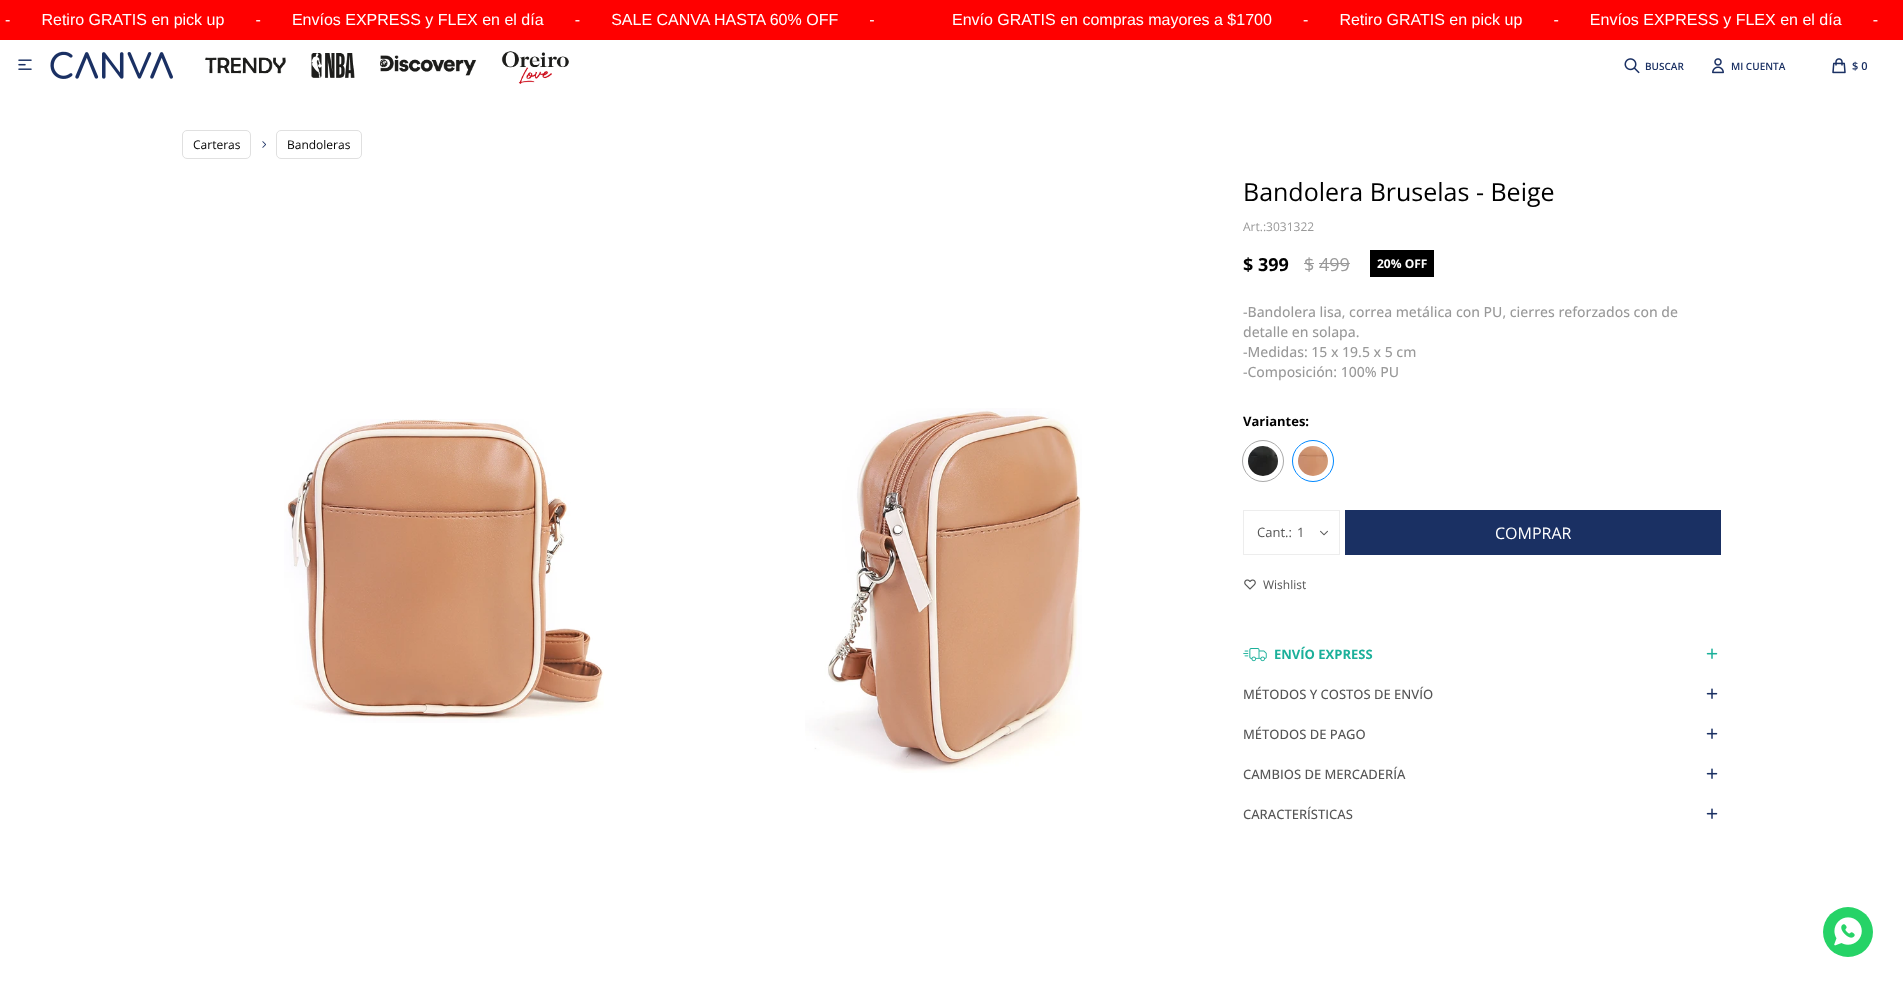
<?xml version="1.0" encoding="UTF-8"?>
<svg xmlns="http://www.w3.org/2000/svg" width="1903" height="987">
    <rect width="100%" height="100%" fill="#FFFFFF"/>
    <rect x="0" y="0" width="1903" height="40" fill="#FF0000"/>
    <text x="5" y="25" font-family="Liberation Sans" font-size="16" fill="#FFFFFF" xml:space="preserve">-       Retiro GRATIS en pick up       -       Envíos EXPRESS y FLEX en el día       -       SALE CANVA HASTA 60% OFF       -</text>
    <text x="952" y="25" font-family="Liberation Sans" font-size="16" fill="#FFFFFF" xml:space="preserve">Envío GRATIS en compras mayores a $1700       -       Retiro GRATIS en pick up       -       Envíos EXPRESS y FLEX en el día       -</text>
    <image x="18" y="59" width="14" height="11" href="img_01.png"/>
    <image x="50" y="51" width="123" height="28" href="img_02.png"/>
    <image x="205" y="57" width="81" height="17" href="img_03.png"/>
    <image x="311" y="53" width="44" height="25" href="img_04.png"/>
    <image x="380" y="55" width="97" height="21" href="img_05.png"/>
    <image x="501" y="51" width="68" height="33" href="img_06.png"/>
    <image x="1624" y="58" width="16" height="16" href="img_07.png"/>
    <text x="1645" y="70" font-family="Open Sans" font-size="10" font-weight="600" fill="#1A3063">BUSCAR</text>
    <image x="1712" y="58" width="12" height="16" href="img_08.png"/>
    <text x="1731" y="70" font-family="Open Sans" font-size="10" font-weight="600" fill="#1A3063">MI CUENTA</text>
    <image x="1832" y="58" width="14" height="16" href="img_09.png"/>
    <text x="1852" y="70" font-family="Open Sans" font-size="11" font-weight="600" fill="#1A3063">$ 0</text>
    <rect x="182.5" y="130.5" width="68" height="28" rx="4.5" fill="none" stroke="#E0E0E0"/>
    <text x="193" y="149" font-family="Open Sans" font-size="12" fill="#000000">Carteras</text>
    <image x="262" y="141" width="4" height="7" href="img_10.png"/>
    <rect x="276.5" y="130.5" width="85" height="28" rx="4.5" fill="none" stroke="#E0E0E0"/>
    <text x="287" y="149" font-family="Open Sans" font-size="12" fill="#000000">Bandoleras</text>
    <image x="284" y="419" width="320" height="304" href="img_11.png"/>
    <image x="805" y="408" width="277" height="365" href="img_12.png"/>
    <text x="1243" y="201" font-family="Open Sans" font-size="25" fill="#000000">Bandolera Bruselas - Beige</text>
    <text x="1243" y="231" font-family="Open Sans" font-size="12" fill="#999999">Art.:3031322</text>
    <text x="1243" y="271" font-family="Open Sans" font-size="18" font-weight="700" fill="#000000">$ 399</text>
    <text x="1304" y="271" font-family="Open Sans" font-size="18" fill="#999999">$ 499</text>
    <rect x="1304" y="263" width="10" height="1" fill="#999999"/>
    <rect x="1319" y="263" width="31" height="1" fill="#999999"/>
    <rect x="1370" y="250" width="64" height="27" fill="#000000"/>
    <text x="1377" y="268" font-family="Open Sans" font-size="12" font-weight="700" fill="#FFFFFF">20% OFF</text>
    <text font-family="Open Sans" font-size="14" font-weight="500" fill="#999999">
        <tspan x="1243" y="317">-Bandolera lisa, correa metálica con PU, cierres reforzados con de</tspan>
        <tspan x="1243" y="337">detalle en solapa.</tspan>
        <tspan x="1243" y="357">-Medidas: 15 x 19.5 x 5 cm</tspan>
        <tspan x="1243" y="377">-Composición: 100% PU</tspan>
    </text>
    <text x="1243" y="426" font-family="Open Sans" font-size="13" font-weight="700" fill="#000000">Variantes:</text>
    <circle cx="1263" cy="461" r="20.5" fill="none" stroke="#AAAAAA"/>
    <image x="1248" y="446" width="30" height="30" href="img_13.png"/>
    <circle cx="1313" cy="461" r="20.5" fill="none" stroke="#0088FF"/>
    <image x="1298" y="446" width="30" height="30" href="img_14.png"/>
    <image x="1320" y="530" width="8" height="6" href="img_15.png"/>
    <rect x="1243.5" y="510.5" width="96" height="44" fill="none" stroke="#EDEDED"/>
    <text x="1257" y="537" font-family="Open Sans" font-size="13" fill="#555555">Cant.:</text>
    <text x="1297" y="537" font-family="Open Sans" font-size="13" fill="#555555">1</text>
    <rect x="1345" y="510" width="376" height="45" fill="#1A3063"/>
    <text x="1495" y="539" font-family="Open Sans" font-size="16" fill="#FFFFFF">COMPRAR</text>
    <image x="1244" y="579" width="12" height="11" href="img_16.png"/>
    <text x="1263" y="589" font-family="Open Sans" font-size="12" fill="#555555">Wishlist</text>
    <image x="1243" y="648" width="24" height="14" href="img_17.png"/>
    <text x="1274" y="659" font-family="Open Sans" font-size="13" font-weight="700" fill="#1BB09A">ENVÍO EXPRESS</text>
    <image x="1706" y="648" width="12" height="11" href="img_18.png"/>
    <text x="1243" y="699" font-family="Open Sans" font-size="13" font-weight="500" fill="#555555">MÉTODOS Y COSTOS DE ENVÍO</text>
    <image x="1706" y="688" width="12" height="11" href="img_19.png"/>
    <text x="1243" y="739" font-family="Open Sans" font-size="13" font-weight="500" fill="#555555">MÉTODOS DE PAGO</text>
    <image x="1706" y="728" width="12" height="11" href="img_19.png"/>
    <text x="1243" y="779" font-family="Open Sans" font-size="13" font-weight="500" fill="#555555">CAMBIOS DE MERCADERÍA</text>
    <image x="1706" y="768" width="12" height="11" href="img_19.png"/>
    <text x="1243" y="819" font-family="Open Sans" font-size="13" font-weight="500" fill="#555555">CARACTERÍSTICAS</text>
    <image x="1706" y="808" width="12" height="11" href="img_19.png"/>
    <circle cx="1848" cy="932" r="25" fill="#26D367"/>
    <image x="1834" y="917" width="28" height="29" href="img_20.png"/>
</svg>
